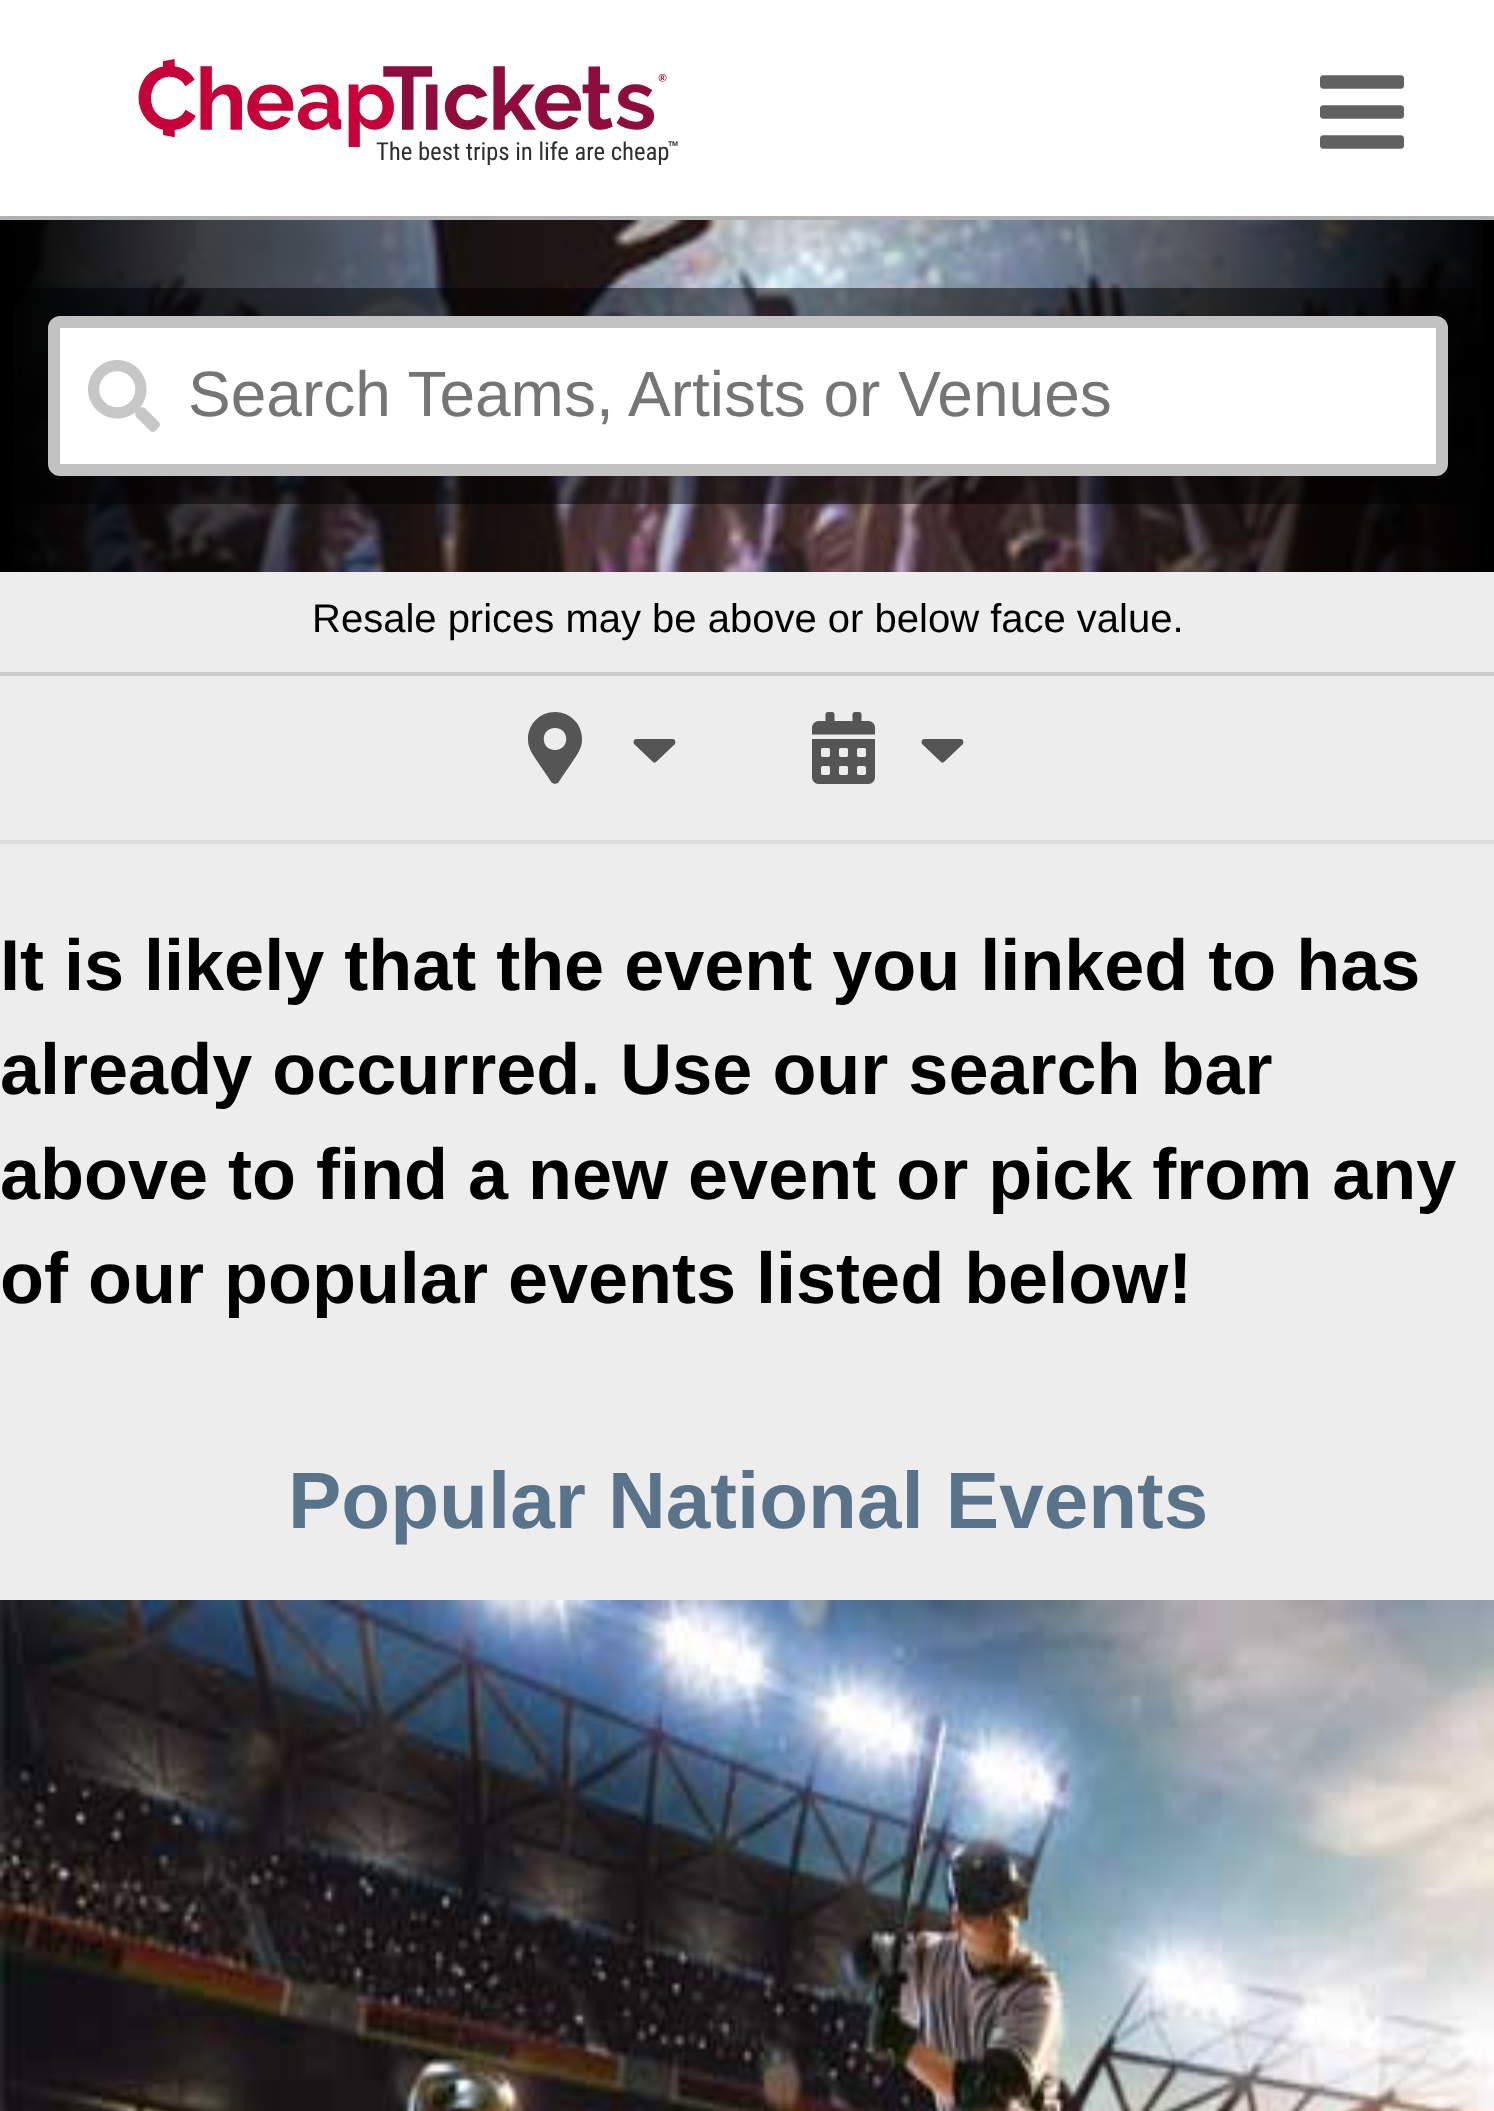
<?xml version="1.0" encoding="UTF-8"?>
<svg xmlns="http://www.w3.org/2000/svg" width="1494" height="2111">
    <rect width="100%" height="100%" fill="#EDEDED"/>
    <rect x="0" y="216" width="1494" height="4" fill="#AFB0B4"/>
    <rect x="0" y="0" width="1494" height="216" fill="#FFFFFF"/>
    <image x="138" y="59" width="540" height="106" href="img_01.png"/>
    <image x="1320" y="75" width="84" height="74" href="img_02.png"/>
    <rect x="0" y="220" width="1494" height="352" fill="#000000"/>
    <image x="13" y="220" width="1470" height="352" href="img_03.png"/>
    <rect x="17" y="288" width="1459" height="216" fill="#000000" fill-opacity="0.5"/>
    <rect x="54" y="322" width="1388" height="148" rx="6" fill="#FFFFFF" stroke="#C2C2C2" stroke-width="12"/>
    <image x="88" y="360" width="72" height="72" href="img_04.png"/>
    <text x="188" y="416" font-family="Liberation Sans" font-size="64" fill="#757575">Search Teams, Artists or Venues</text>
    <rect x="0" y="672" width="1494" height="4" fill="#CCCCCC"/>
    <text x="312" y="632" font-family="Liberation Sans" font-size="40" fill="#000000">Resale prices may be above or below face value.</text>
    <rect x="0" y="840" width="1494" height="4" fill="#DDDDDD"/>
    <path d="M 552 783 C 532 753 528 750 528 739 C 528 724 540 712 555 712 C 570 712 582 724 582 739 C 582 750 578 753 558 783 C 556 784 554 784 552 783 Z M 555 750 C 570 750 570 728 555 728 C 540 728 540 750 555 750 Z" fill="#555555"/>
    <path d="M 636 739 H 673 C 675 739 676 742 675 744 L 656 762 C 655 763 654 763 653 762 L 634 744 C 633 742 634 739 636 739 Z" fill="#555555"/>
    <image x="812" y="712" width="63" height="72" href="img_05.png"/>
    <path d="M 924 739 H 961 C 963 739 964 742 963 744 L 944 762 C 943 763 942 763 941 762 L 922 744 C 921 742 922 739 924 739 Z" fill="#555555"/>
    <text font-family="Liberation Sans" font-size="72" font-weight="700" fill="#000000">
        <tspan x="0" y="990">It is likely that the event you linked to has</tspan>
        <tspan x="0" y="1094">already occurred. Use our search bar</tspan>
        <tspan x="0" y="1199">above to find a new event or pick from any</tspan>
        <tspan x="0" y="1303">of our popular events listed below!</tspan>
    </text>
    <text x="288" y="1528" font-family="Liberation Sans" font-size="80" font-weight="700" fill="#58738A">Popular National Events</text>
    <image x="0" y="1600" width="1494" height="511" href="img_06.png"/>
</svg>
